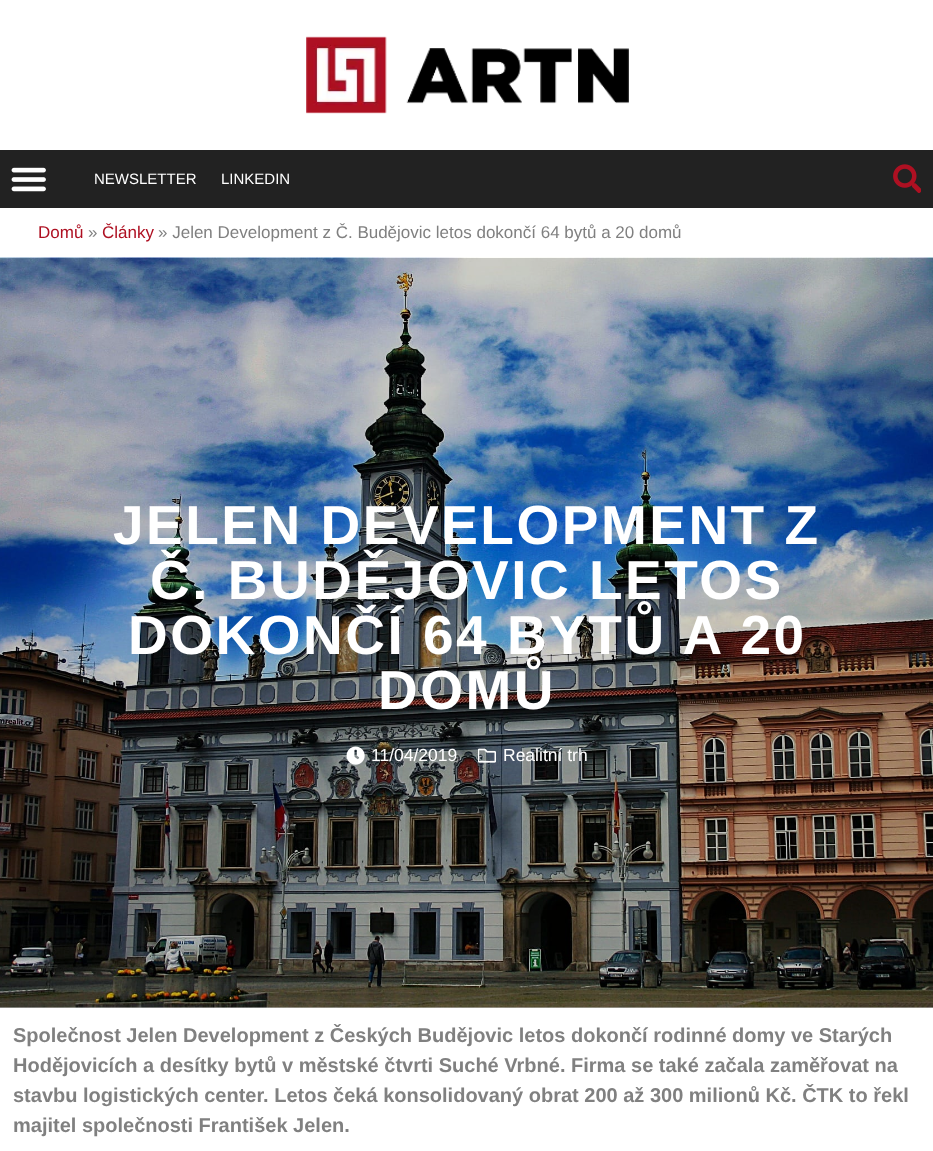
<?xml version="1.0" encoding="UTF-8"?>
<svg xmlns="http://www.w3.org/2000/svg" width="933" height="1151">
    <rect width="100%" height="100%" fill="#FFFFFF"/>
    <image x="306" y="36" width="323" height="78" href="img_01.png"/>
    <rect x="0" y="150" width="933" height="58" fill="#222222"/>
    <image x="11" y="167" width="35" height="25" href="img_02.png"/>
    <text x="94" y="184" font-family="Liberation Sans" font-size="15" fill="#FFFFFF">NEWSLETTER</text>
    <text x="221" y="184" font-family="Liberation Sans" font-size="15" fill="#FFFFFF">LINKEDIN</text>
    <image x="893" y="164" width="28" height="29" href="img_03.png"/>
    <text x="38" y="238" font-family="Liberation Sans" font-size="17" fill="#AE1022">Domů</text>
    <text x="88" y="238" font-family="Liberation Sans" font-size="17" fill="#808080">»</text>
    <text x="102" y="238" font-family="Liberation Sans" font-size="17" fill="#AE1022">Články</text>
    <text x="158" y="238" font-family="Liberation Sans" font-size="17" fill="#808080">» Jelen Development z Č. Budějovic letos dokončí 64 bytů a 20 domů</text>
    <rect x="0" y="1007" width="933" height="1" fill="#CCCCCC"/>
    <image x="0" y="257" width="933" height="751" href="img_04.png"/>
    <text x="113" y="544" font-family="Liberation Sans" font-size="55" font-weight="700" letter-spacing="2.5" fill="#FFFFFF">JELEN DEVELOPMENT Z</text>
    <text x="150" y="599" font-family="Liberation Sans" font-size="55" font-weight="700" letter-spacing="2.5" fill="#FFFFFF">Č. BUDĚJOVIC LETOS</text>
    <text x="128" y="654" font-family="Liberation Sans" font-size="55" font-weight="700" letter-spacing="2.5" fill="#FFFFFF">DOKONČÍ 64 BYTŮ A 20</text>
    <text x="378" y="709" font-family="Liberation Sans" font-size="55" font-weight="700" letter-spacing="2.5" fill="#FFFFFF">DOMŮ</text>
    <image x="346" y="746" width="19" height="19" href="img_05.png"/>
    <text x="371" y="761" font-family="Liberation Sans" font-size="17.5" fill="#FFFFFF">11/04/2019</text>
    <image x="478" y="748" width="18" height="15" href="img_06.png"/>
    <text x="503" y="761" font-family="Liberation Sans" font-size="17.5" fill="#FFFFFF">Realitní trh</text>
    <text font-family="Liberation Sans" font-size="20" font-weight="700" fill="#808080">
        <tspan x="13" y="1042">Společnost Jelen Development z Českých Budějovic letos dokončí rodinné domy ve Starých</tspan>
        <tspan x="13" y="1072">Hodějovicích a desítky bytů v městské čtvrti Suché Vrbné. Firma se také začala zaměřovat na</tspan>
        <tspan x="13" y="1102">stavbu logistických center. Letos čeká konsolidovaný obrat 200 až 300 milionů Kč. ČTK to řekl</tspan>
        <tspan x="13" y="1132">majitel společnosti František Jelen.</tspan>
    </text>
</svg>
